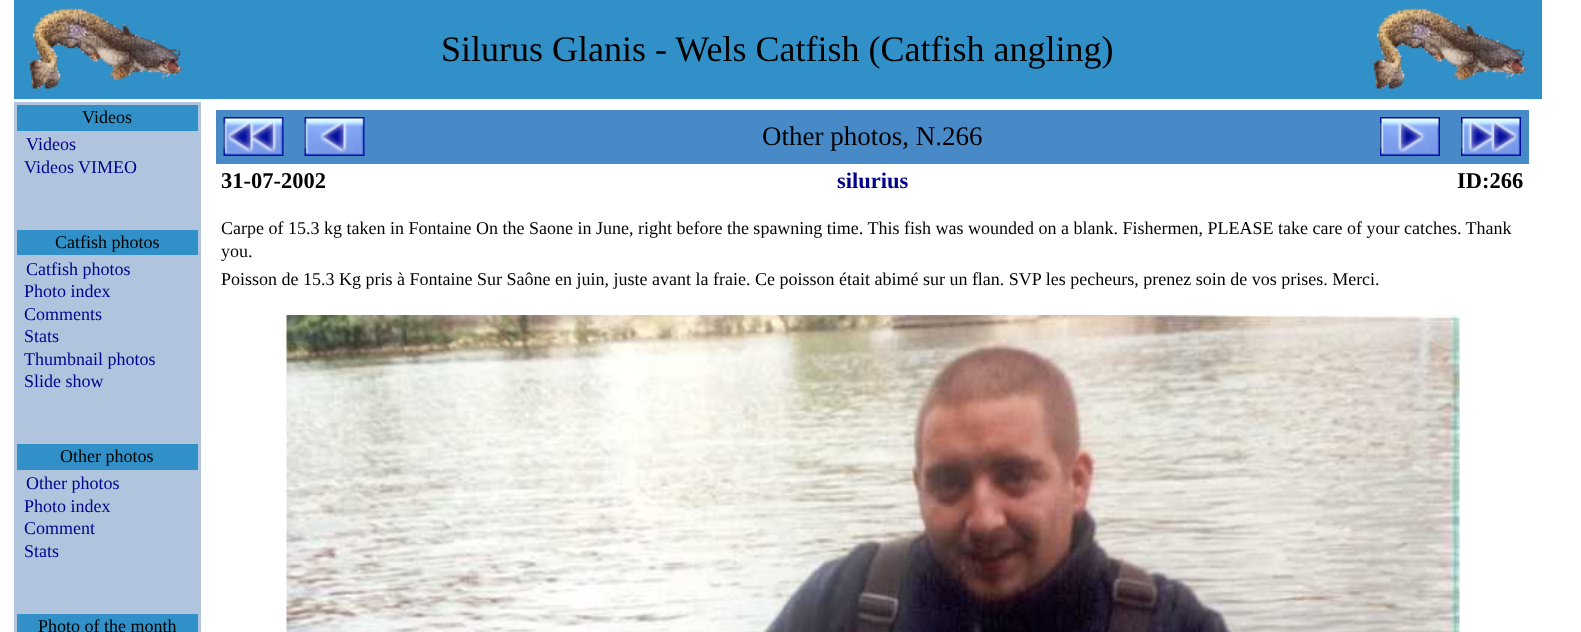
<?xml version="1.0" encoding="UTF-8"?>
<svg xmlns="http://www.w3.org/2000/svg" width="1581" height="632">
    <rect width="100%" height="100%" fill="#FFFFFF"/>
    <rect x="14" y="0" width="1528" height="99" fill="#3090C7"/>
    <image x="29" y="8" width="153" height="81" href="img_01.png"/>
    <text x="441" y="61" font-family="Liberation Serif" font-size="36" fill="#000000">Silurus Glanis - Wels Catfish (Catfish angling)</text>
    <image x="1373" y="8" width="153" height="81" href="img_02.png"/>
    <rect x="14" y="102" width="187" height="530" fill="#B0C4DE"/>
    <rect x="17" y="105" width="181" height="26" fill="#3090C7"/>
    <text x="82" y="123" font-family="Liberation Serif" font-size="18" fill="#000000">Videos</text>
    <text x="26" y="150" font-family="Liberation Serif" font-size="18" fill="#00008B">Videos</text>
    <text x="24" y="173" font-family="Liberation Serif" font-size="18" fill="#00008B">Videos VIMEO</text>
    <rect x="17" y="230" width="181" height="25" fill="#3090C7"/>
    <text x="55" y="248" font-family="Liberation Serif" font-size="18" fill="#000000">Catfish photos</text>
    <text x="26" y="275" font-family="Liberation Serif" font-size="18" fill="#00008B">Catfish photos</text>
    <text font-family="Liberation Serif" font-size="18" fill="#00008B">
        <tspan x="24" y="297">Photo index</tspan>
        <tspan x="24" y="320">Comments</tspan>
        <tspan x="24" y="342">Stats</tspan>
        <tspan x="24" y="365">Thumbnail photos</tspan>
        <tspan x="24" y="387">Slide show</tspan>
    </text>
    <rect x="17" y="444" width="181" height="26" fill="#3090C7"/>
    <text x="60" y="462" font-family="Liberation Serif" font-size="18" fill="#000000">Other photos</text>
    <text x="26" y="489" font-family="Liberation Serif" font-size="18" fill="#00008B">Other photos</text>
    <text font-family="Liberation Serif" font-size="18" fill="#00008B">
        <tspan x="24" y="512">Photo index</tspan>
        <tspan x="24" y="534">Comment</tspan>
        <tspan x="24" y="557">Stats</tspan>
    </text>
    <rect x="17" y="614" width="181" height="18" fill="#3090C7"/>
    <text x="38" y="632" font-family="Liberation Serif" font-size="18" fill="#000000">Photo of the month</text>
    <rect x="216" y="110" width="1313" height="54" fill="#488AC7"/>
    <image x="223" y="117" width="61" height="39" href="img_03.png"/>
    <image x="304" y="117" width="61" height="39" href="img_04.png"/>
    <text x="762" y="145" font-family="Liberation Serif" font-size="27" fill="#000000">Other photos, N.266</text>
    <image x="1380" y="117" width="60" height="39" href="img_05.png"/>
    <image x="1461" y="117" width="60" height="39" href="img_06.png"/>
    <text x="221" y="188" font-family="Liberation Serif" font-size="22.5" font-weight="700" fill="#000000">31-07-2002</text>
    <text x="837" y="188" font-family="Liberation Serif" font-size="22.5" font-weight="700" fill="#00008B">silurius</text>
    <text x="1457" y="188" font-family="Liberation Serif" font-size="22.5" font-weight="700" fill="#000000">ID:266</text>
    <text font-family="Liberation Serif" font-size="18" fill="#000000">
        <tspan x="221" y="234">Carpe of 15.3 kg taken in Fontaine On the Saone in June, right before the spawning time. This fish was wounded on a blank. Fishermen, PLEASE take care of your catches. Thank</tspan>
        <tspan x="221" y="257">you.</tspan>
        <tspan x="221" y="285">Poisson de 15.3 Kg pris à Fontaine Sur Saône en juin, juste avant la fraie. Ce poisson était abimé sur un flan. SVP les pecheurs, prenez soin de vos prises. Merci.</tspan>
    </text>
    <image x="286" y="315" width="1174" height="317" href="img_07.png"/>
</svg>
